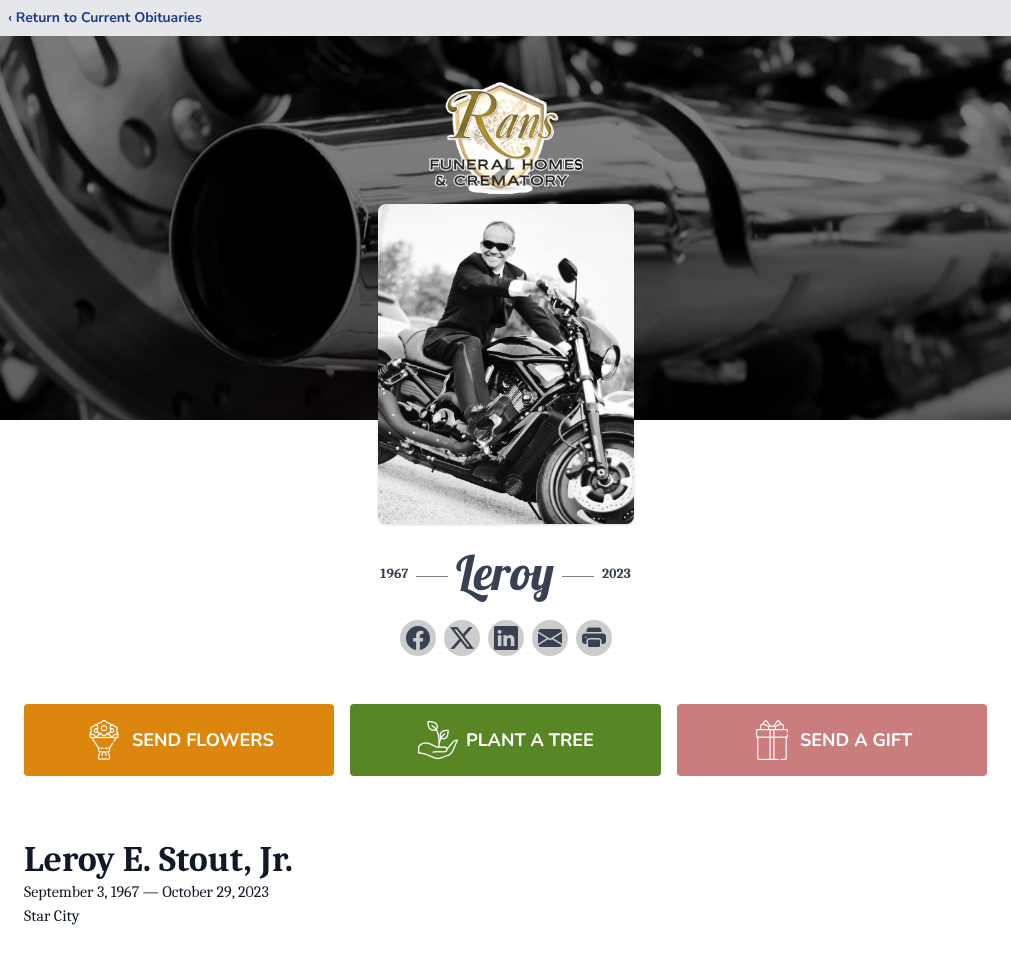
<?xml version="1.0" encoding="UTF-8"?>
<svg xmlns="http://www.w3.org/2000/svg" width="1011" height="959">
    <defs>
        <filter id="blur1" x="-50%" y="-200%" width="200%" height="500%"><feGaussianBlur stdDeviation="1"/></filter>
        <filter id="blur2" x="-50%" y="-200%" width="200%" height="500%"><feGaussianBlur stdDeviation="1.5"/></filter>
    </defs>
    <rect width="100%" height="100%" fill="#FFFFFF"/>
    <rect x="0" y="0" width="1011" height="36" fill="#E5E7EB"/>
    <text x="8" y="22" font-family="Nunito" font-size="14" font-weight="700" fill="#1E3A8A">‹ Return to Current Obituaries</text>
    <image x="0" y="36" width="1011" height="384" href="img_01.png"/>
    <image x="429" y="82" width="155" height="113" href="img_02.png"/>
    <rect x="379" y="206" width="254" height="318" rx="7" fill="#000000" fill-opacity="0.1" filter="url(#blur1)"/>
    <rect x="378" y="205" width="256" height="320" rx="8" fill="#000000" fill-opacity="0.1" filter="url(#blur2)"/>
    <image x="378" y="204" width="256" height="320" href="img_03.png"/>
    <text x="380" y="578" font-family="Caladea" font-size="14" font-weight="700" fill="#374151">1967</text>
    <rect x="416" y="576" width="32" height="1" fill="#808080"/>
    <text x="456" y="590" font-family="Lobster" font-size="48" fill="#374151">Leroy</text>
    <rect x="562" y="576" width="32" height="1" fill="#808080"/>
    <text x="602" y="578" font-family="Caladea" font-size="14" font-weight="700" fill="#374151">2023</text>
    <circle cx="418" cy="638" r="18" fill="#CCCCCC"/>
    <image x="406" y="626" width="24" height="24" href="img_04.png"/>
    <circle cx="462" cy="638" r="18" fill="#CCCCCC"/>
    <image x="450" y="627" width="24" height="22" href="img_05.png"/>
    <circle cx="506" cy="638" r="18" fill="#CCCCCC"/>
    <image x="494" y="626" width="24" height="24" href="img_06.png"/>
    <circle cx="550" cy="638" r="18" fill="#CCCCCC"/>
    <image x="538" y="629" width="24" height="18" href="img_07.png"/>
    <circle cx="594" cy="638" r="18" fill="#CCCCCC"/>
    <image x="582" y="627" width="24" height="20" href="img_08.png"/>
    <rect x="24" y="704" width="310" height="72" rx="4" fill="#DC860D"/>
    <image x="89" y="720" width="30" height="40" href="img_09.png"/>
    <text x="132" y="746" font-family="Nunito" font-size="18" font-weight="700" fill="#FFFFFF">SEND FLOWERS</text>
    <rect x="350" y="704" width="311" height="72" rx="4" fill="#588624"/>
    <image x="418" y="720" width="40" height="40" href="img_10.png"/>
    <text x="466" y="746" font-family="Nunito" font-size="18" font-weight="700" fill="#FFFFFF">PLANT A TREE</text>
    <rect x="677" y="704" width="310" height="72" rx="4" fill="#CB7C7C"/>
    <image x="756" y="720" width="32" height="40" href="img_11.png"/>
    <text x="800" y="746" font-family="Nunito" font-size="18" font-weight="700" fill="#FFFFFF">SEND A GIFT</text>
    <text x="24" y="871" font-family="Caladea" font-size="36" font-weight="700" fill="#111827">Leroy E. Stout, Jr.</text>
    <text font-family="Caladea" font-size="16" fill="#111827">
        <tspan x="24" y="897">September 3, 1967 — October 29, 2023</tspan>
        <tspan x="24" y="921">Star City</tspan>
    </text>
</svg>
